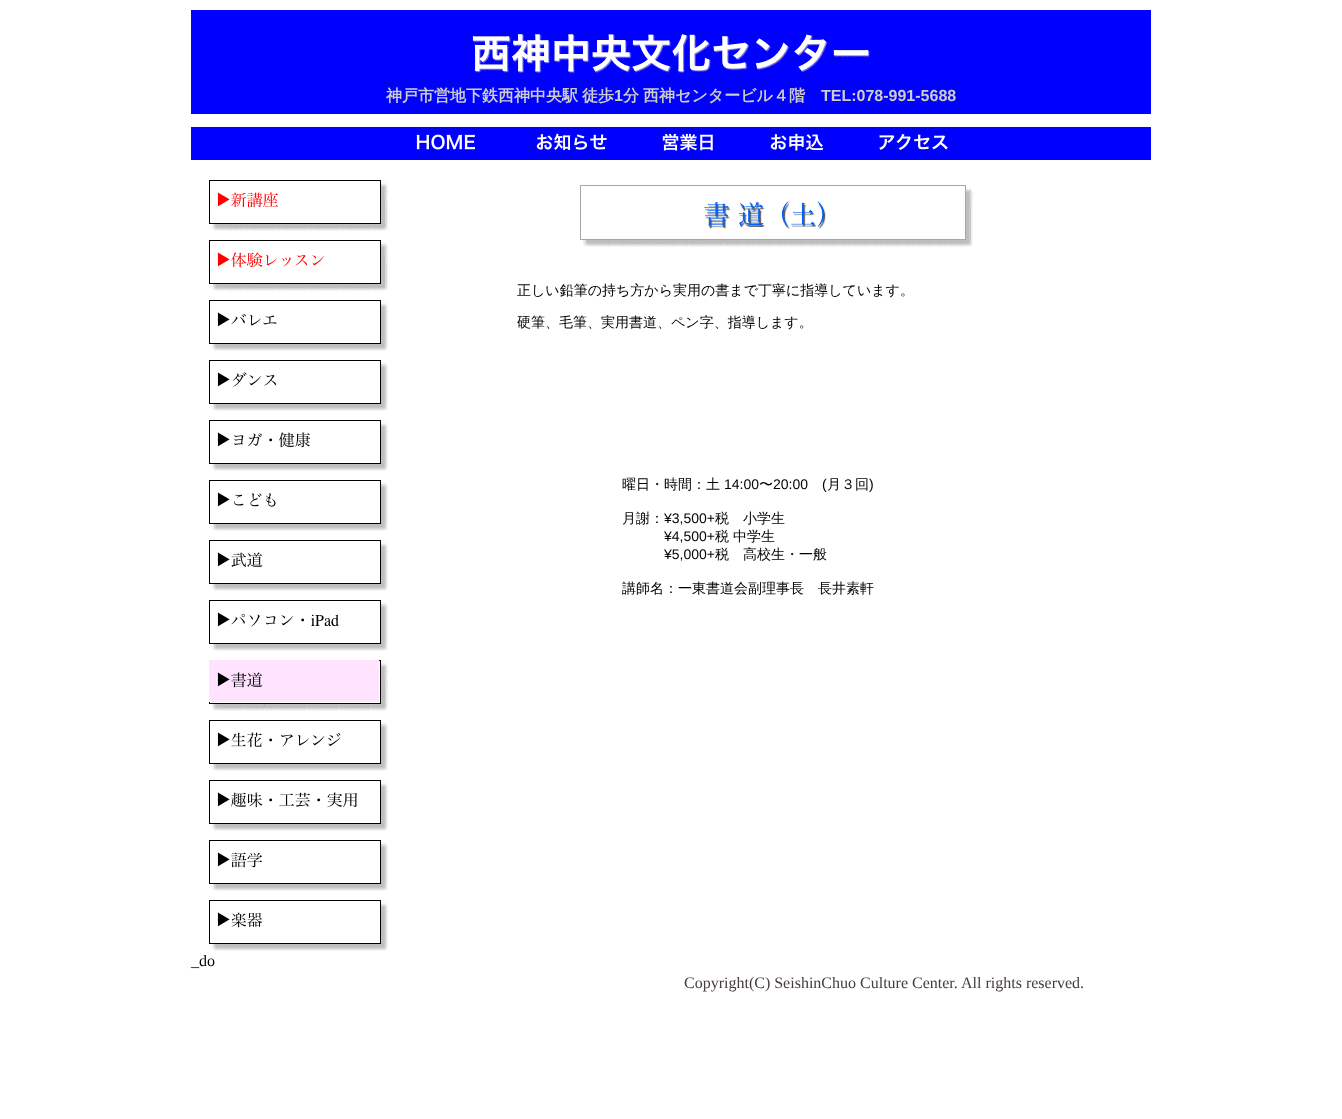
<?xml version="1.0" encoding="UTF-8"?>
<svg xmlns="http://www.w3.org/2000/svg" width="1342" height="1119">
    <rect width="100%" height="100%" fill="#FFFFFF"/>
    <image x="191" y="10" width="960" height="76" href="img_01.png"/>
    <rect x="191" y="86" width="960" height="28" fill="#0000FF"/>
    <text x="386" y="101" font-family="WenQuanYi Zen Hei" font-size="16" font-weight="700" fill="#CCCCCC">神戸市営地下鉄西神中央駅</text>
    <text x="582" y="101" font-family="WenQuanYi Zen Hei" font-size="16" font-weight="700" fill="#CCCCCC">徒歩</text>
    <text x="614" y="101" font-family="Liberation Sans" font-size="16" font-weight="700" fill="#CCCCCC">1</text>
    <text x="623" y="101" font-family="WenQuanYi Zen Hei" font-size="16" font-weight="700" fill="#CCCCCC">分</text>
    <text x="643" y="101" font-family="WenQuanYi Zen Hei" font-size="16" font-weight="700" fill="#CCCCCC">西神センタービル４階</text>
    <text x="821" y="101" font-family="Liberation Sans" font-size="16" font-weight="700" fill="#CCCCCC">TEL:078-991-5688</text>
    <image x="191" y="127" width="960" height="33" href="img_02.png"/>
    <image x="209" y="180" width="179" height="51" href="img_03.png"/>
    <image x="580" y="185" width="393" height="62" href="img_04.png"/>
    <image x="209" y="240" width="179" height="51" href="img_05.png"/>
    <image x="209" y="300" width="179" height="51" href="img_06.png"/>
    <text x="517" y="295" font-family="WenQuanYi Zen Hei" font-size="14" font-weight="500" fill="#000000">正しい鉛筆の持ち方から実用の書まで丁寧に指導しています。</text>
    <text x="517" y="327" font-family="WenQuanYi Zen Hei" font-size="14" font-weight="500" fill="#000000">硬筆、毛筆、実用書道、ペン字、指導します。</text>
    <image x="209" y="360" width="179" height="51" href="img_07.png"/>
    <image x="209" y="420" width="179" height="51" href="img_08.png"/>
    <image x="209" y="480" width="179" height="51" href="img_09.png"/>
    <text x="622" y="489" font-family="WenQuanYi Zen Hei" font-size="14" font-weight="500" fill="#000000">曜日・時間：土</text>
    <text x="724" y="489" font-family="Liberation Sans" font-size="14" fill="#000000">14:00</text>
    <text x="759" y="489" font-family="WenQuanYi Zen Hei" font-size="14" font-weight="500" fill="#000000">〜</text>
    <text x="773" y="489" font-family="Liberation Sans" font-size="14" fill="#000000">20:00</text>
    <text x="822" y="489" font-family="Liberation Sans" font-size="14" fill="#000000">(</text>
    <text x="827" y="489" font-family="WenQuanYi Zen Hei" font-size="14" font-weight="500" fill="#000000">月３回</text>
    <text x="869" y="489" font-family="Liberation Sans" font-size="14" fill="#000000">)</text>
    <text x="622" y="523" font-family="WenQuanYi Zen Hei" font-size="14" font-weight="500" fill="#000000">月謝：</text>
    <text x="664" y="523" font-family="Liberation Sans" font-size="14" fill="#000000">¥3,500+</text>
    <text x="715" y="523" font-family="WenQuanYi Zen Hei" font-size="14" font-weight="500" fill="#000000">税　小学生</text>
    <text x="664" y="541" font-family="Liberation Sans" font-size="14" fill="#000000">¥4,500+</text>
    <text x="715" y="541" font-family="WenQuanYi Zen Hei" font-size="14" font-weight="500" fill="#000000">税</text>
    <text x="733" y="541" font-family="WenQuanYi Zen Hei" font-size="14" font-weight="500" fill="#000000">中学生</text>
    <text x="664" y="559" font-family="Liberation Sans" font-size="14" fill="#000000">¥5,000+</text>
    <text x="715" y="559" font-family="WenQuanYi Zen Hei" font-size="14" font-weight="500" fill="#000000">税　高校生・一般</text>
    <text x="622" y="593" font-family="WenQuanYi Zen Hei" font-size="14" font-weight="500" fill="#000000">講師名：一東書道会副理事長　長井素軒</text>
    <image x="209" y="540" width="179" height="51" href="img_10.png"/>
    <image x="209" y="600" width="179" height="51" href="img_11.png"/>
    <image x="209" y="660" width="179" height="51" href="img_12.png"/>
    <image x="209" y="720" width="179" height="51" href="img_13.png"/>
    <image x="209" y="780" width="179" height="51" href="img_14.png"/>
    <image x="209" y="840" width="179" height="51" href="img_15.png"/>
    <image x="209" y="900" width="179" height="51" href="img_16.png"/>
    <text x="191" y="966" font-family="Liberation Serif" font-size="16" fill="#000000">_do</text>
    <text x="684" y="988" font-family="Liberation Serif" font-size="16" fill="#463C3C">Copyright(C) SeishinChuo Culture Center.</text>
    <text x="961" y="988" font-family="Liberation Serif" font-size="16" fill="#463C3C">All rights reserved.</text>
</svg>
